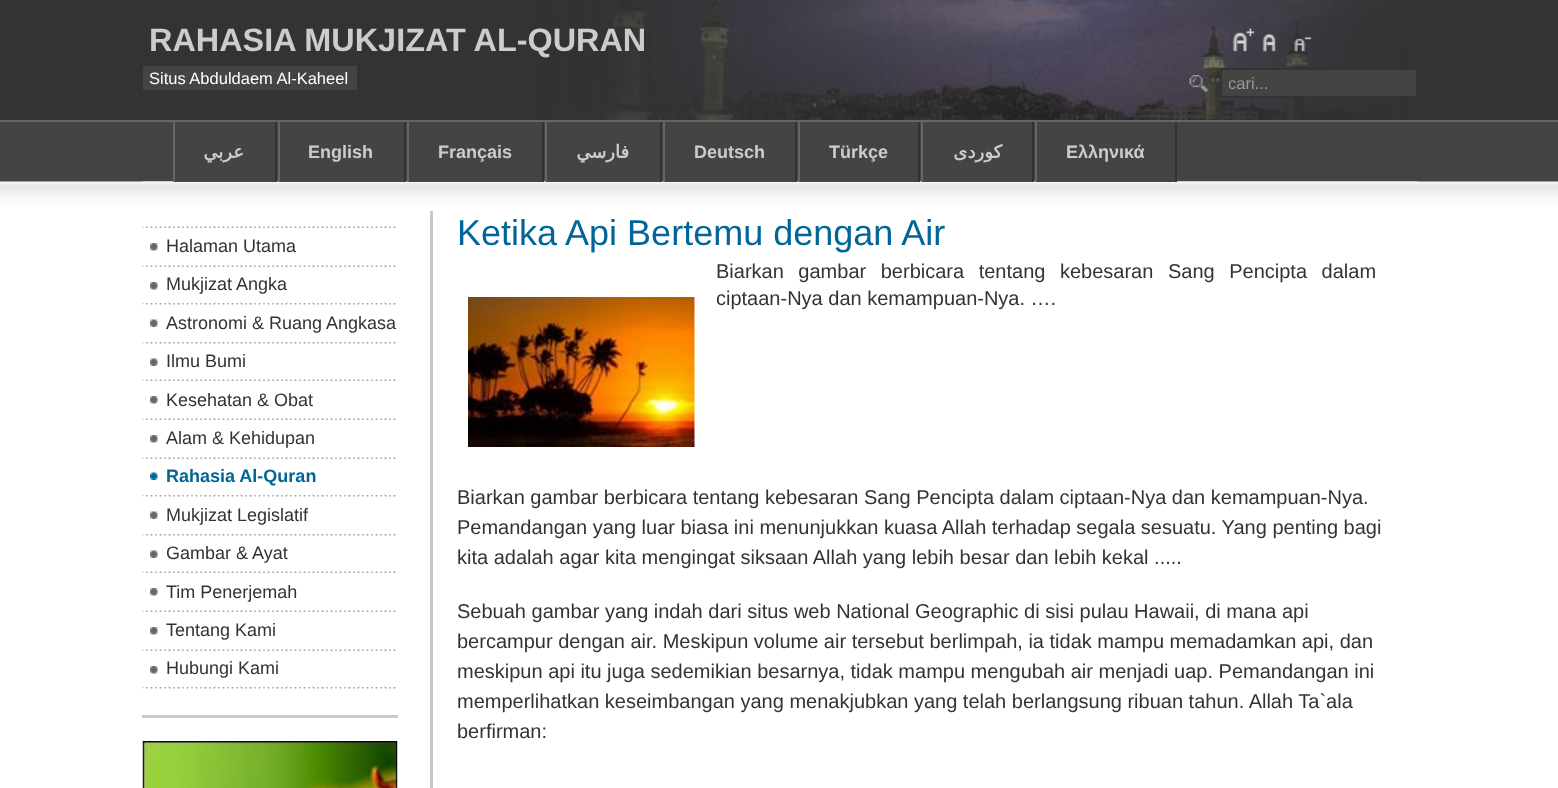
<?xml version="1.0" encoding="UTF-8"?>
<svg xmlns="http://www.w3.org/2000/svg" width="1558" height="788">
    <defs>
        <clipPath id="clip1"><rect x="1229" y="74" width="180" height="18"/></clipPath>
    </defs>
    <rect width="100%" height="100%" fill="#FFFFFF"/>
    <rect x="0" y="0" width="1558" height="120" fill="#333333"/>
    <image x="524" y="0" width="890" height="120" href="img_01.png"/>
    <image x="517" y="0" width="901" height="120" href="img_02.png"/>
    <text x="149" y="51" font-family="Liberation Sans" font-size="32.4" font-weight="700" fill="#CCCCCC">RAHASIA MUKJIZAT AL-QURAN</text>
    <image x="1232" y="28" width="22" height="24" href="img_03.png"/>
    <image x="1262" y="34" width="14" height="18" href="img_04.png"/>
    <image x="1294" y="37" width="18" height="15" href="img_05.png"/>
    <rect x="143" y="66" width="214" height="24" fill="#444444"/>
    <text x="149" y="84" font-family="Liberation Sans" font-size="16.5" fill="#FFFFFF">Situs Abduldaem Al-Kaheel</text>
    <image x="1189" y="75" width="19" height="17" href="img_06.png"/>
    <rect x="1221" y="69" width="196" height="28" fill="#444444" stroke="#333333" stroke-width="2"/>
    <g clip-path="url(#clip1)">
        <text x="1228" y="89" font-family="Liberation Sans" font-size="16.5" fill="#999999">cari...</text>
    </g>
    <rect x="0" y="122" width="1558" height="60" fill="#444444"/>
    <rect x="0" y="120" width="1558" height="2" fill="#666666"/>
    <image x="0" y="181" width="1558" height="24" href="img_07.png"/>
    <image x="142" y="181" width="1276" height="1" href="img_08.png"/>
    <rect x="175" y="181" width="100" height="1" fill="#444444"/>
    <rect x="275" y="122" width="2" height="60" fill="#333333"/>
    <rect x="173" y="122" width="2" height="60" fill="#666666"/>
    <text x="244" y="158" font-family="DejaVu Sans" font-size="18" font-weight="700" direction="rtl" fill="#CCCCCC">عربي</text>
    <rect x="280" y="181" width="124" height="1" fill="#444444"/>
    <rect x="404" y="122" width="2" height="60" fill="#333333"/>
    <rect x="278" y="122" width="2" height="60" fill="#666666"/>
    <text x="308" y="158" font-family="Liberation Sans" font-size="18" font-weight="700" fill="#CCCCCC">English</text>
    <rect x="409" y="181" width="133" height="1" fill="#444444"/>
    <rect x="542" y="122" width="2" height="60" fill="#333333"/>
    <rect x="407" y="122" width="2" height="60" fill="#666666"/>
    <text x="438" y="158" font-family="Liberation Sans" font-size="18" font-weight="700" fill="#CCCCCC">Français</text>
    <rect x="547" y="181" width="113" height="1" fill="#444444"/>
    <rect x="660" y="122" width="2" height="60" fill="#333333"/>
    <rect x="545" y="122" width="2" height="60" fill="#666666"/>
    <text x="629" y="158" font-family="DejaVu Sans" font-size="18" font-weight="700" direction="rtl" fill="#CCCCCC">فارسي</text>
    <rect x="665" y="181" width="130" height="1" fill="#444444"/>
    <rect x="795" y="122" width="2" height="60" fill="#333333"/>
    <rect x="663" y="122" width="2" height="60" fill="#666666"/>
    <text x="694" y="158" font-family="Liberation Sans" font-size="18" font-weight="700" fill="#CCCCCC">Deutsch</text>
    <rect x="800" y="181" width="118" height="1" fill="#444444"/>
    <rect x="918" y="122" width="2" height="60" fill="#333333"/>
    <rect x="798" y="122" width="2" height="60" fill="#666666"/>
    <text x="829" y="158" font-family="Liberation Sans" font-size="18" font-weight="700" fill="#CCCCCC">Türkçe</text>
    <rect x="923" y="181" width="109" height="1" fill="#444444"/>
    <rect x="1032" y="122" width="2" height="60" fill="#333333"/>
    <rect x="921" y="122" width="2" height="60" fill="#666666"/>
    <text x="1002" y="158" font-family="DejaVu Sans" font-size="18" font-weight="700" direction="rtl" fill="#CCCCCC">كوردى</text>
    <rect x="1037" y="181" width="138" height="1" fill="#444444"/>
    <rect x="1175" y="122" width="2" height="60" fill="#333333"/>
    <rect x="1035" y="122" width="2" height="60" fill="#666666"/>
    <text x="1066" y="158" font-family="Liberation Sans" font-size="18" font-weight="700" fill="#CCCCCC">Ελληνικά</text>
    <rect x="430" y="211" width="3" height="577" fill="#C8C8C8"/>
    <rect x="142" y="715" width="256" height="3" fill="#CACACA"/>
    <image x="142" y="226" width="254" height="2" href="img_09.png"/>
    <image x="142" y="265" width="254" height="2" href="img_09.png"/>
    <image x="150" y="243" width="8" height="8" href="img_10.png"/>
    <text x="166" y="252" font-family="Liberation Sans" font-size="18" fill="#333333">Halaman Utama</text>
    <image x="142" y="303" width="254" height="2" href="img_11.png"/>
    <image x="150" y="282" width="8" height="8" href="img_10.png"/>
    <text x="166" y="290" font-family="Liberation Sans" font-size="18" fill="#333333">Mukjizat Angka</text>
    <image x="142" y="342" width="254" height="2" href="img_11.png"/>
    <image x="150" y="319" width="8" height="8" href="img_12.png"/>
    <text x="166" y="329" font-family="Liberation Sans" font-size="18" fill="#333333">Astronomi &amp; Ruang Angkasa</text>
    <image x="142" y="379" width="254" height="2" href="img_09.png"/>
    <image x="150" y="358" width="8" height="8" href="img_12.png"/>
    <text x="166" y="367" font-family="Liberation Sans" font-size="18" fill="#333333">Ilmu Bumi</text>
    <image x="142" y="418" width="254" height="2" href="img_09.png"/>
    <image x="150" y="396" width="8" height="8" href="img_10.png"/>
    <text x="166" y="406" font-family="Liberation Sans" font-size="18" fill="#333333">Kesehatan &amp; Obat</text>
    <image x="142" y="457" width="254" height="2" href="img_09.png"/>
    <image x="150" y="435" width="8" height="8" href="img_10.png"/>
    <text x="166" y="444" font-family="Liberation Sans" font-size="18" fill="#333333">Alam &amp; Kehidupan</text>
    <image x="142" y="495" width="254" height="2" href="img_11.png"/>
    <image x="150" y="472" width="8" height="8" href="img_13.png"/>
    <text x="166" y="482" font-family="Liberation Sans" font-size="18" font-weight="700" fill="#006699">Rahasia Al-Quran</text>
    <image x="142" y="534" width="254" height="2" href="img_11.png"/>
    <image x="150" y="511" width="8" height="8" href="img_12.png"/>
    <text x="166" y="521" font-family="Liberation Sans" font-size="18" fill="#333333">Mukjizat Legislatif</text>
    <image x="142" y="571" width="254" height="2" href="img_09.png"/>
    <image x="150" y="550" width="8" height="8" href="img_12.png"/>
    <text x="166" y="559" font-family="Liberation Sans" font-size="18" fill="#333333">Gambar &amp; Ayat</text>
    <image x="142" y="610" width="254" height="2" href="img_09.png"/>
    <image x="150" y="588" width="8" height="8" href="img_10.png"/>
    <text x="166" y="598" font-family="Liberation Sans" font-size="18" fill="#333333">Tim Penerjemah</text>
    <image x="142" y="649" width="254" height="2" href="img_09.png"/>
    <image x="150" y="627" width="8" height="8" href="img_10.png"/>
    <text x="166" y="636" font-family="Liberation Sans" font-size="18" fill="#333333">Tentang Kami</text>
    <image x="142" y="687" width="254" height="2" href="img_11.png"/>
    <image x="150" y="666" width="8" height="8" href="img_10.png"/>
    <text x="166" y="674" font-family="Liberation Sans" font-size="18" fill="#333333">Hubungi Kami</text>
    <image x="142" y="741" width="256" height="47" href="img_14.png"/>
    <text x="457" y="245" font-family="Liberation Sans" font-size="36" fill="#006699">Ketika Api Bertemu dengan Air</text>
    <text font-family="Liberation Sans" font-size="20" fill="#333333">
        <tspan x="716" y="278" word-spacing="9">Biarkan gambar berbicara tentang kebesaran Sang Pencipta dalam</tspan>
        <tspan x="716" y="305">ciptaan-Nya dan kemampuan-Nya. ….</tspan>
    </text>
    <image x="468" y="297" width="227" height="150" href="img_15.png"/>
    <text font-family="Liberation Sans" font-size="20" fill="#333333">
        <tspan x="457" y="504">Biarkan gambar berbicara tentang kebesaran Sang Pencipta dalam ciptaan-Nya dan kemampuan-Nya.</tspan>
        <tspan x="457" y="534">Pemandangan yang luar biasa ini menunjukkan kuasa Allah terhadap segala sesuatu. Yang penting bagi</tspan>
        <tspan x="457" y="564">kita adalah agar kita mengingat siksaan Allah yang lebih besar dan lebih kekal .....</tspan>
    </text>
    <text font-family="Liberation Sans" font-size="20" fill="#333333">
        <tspan x="457" y="618">Sebuah gambar yang indah dari situs web National Geographic di sisi pulau Hawaii, di mana api</tspan>
        <tspan x="457" y="648">bercampur dengan air. Meskipun volume air tersebut berlimpah, ia tidak mampu memadamkan api, dan</tspan>
        <tspan x="457" y="678">meskipun api itu juga sedemikian besarnya, tidak mampu mengubah air menjadi uap. Pemandangan ini</tspan>
        <tspan x="457" y="708">memperlihatkan keseimbangan yang menakjubkan yang telah berlangsung ribuan tahun. Allah Ta`ala</tspan>
        <tspan x="457" y="738">berfirman:</tspan>
    </text>
</svg>
